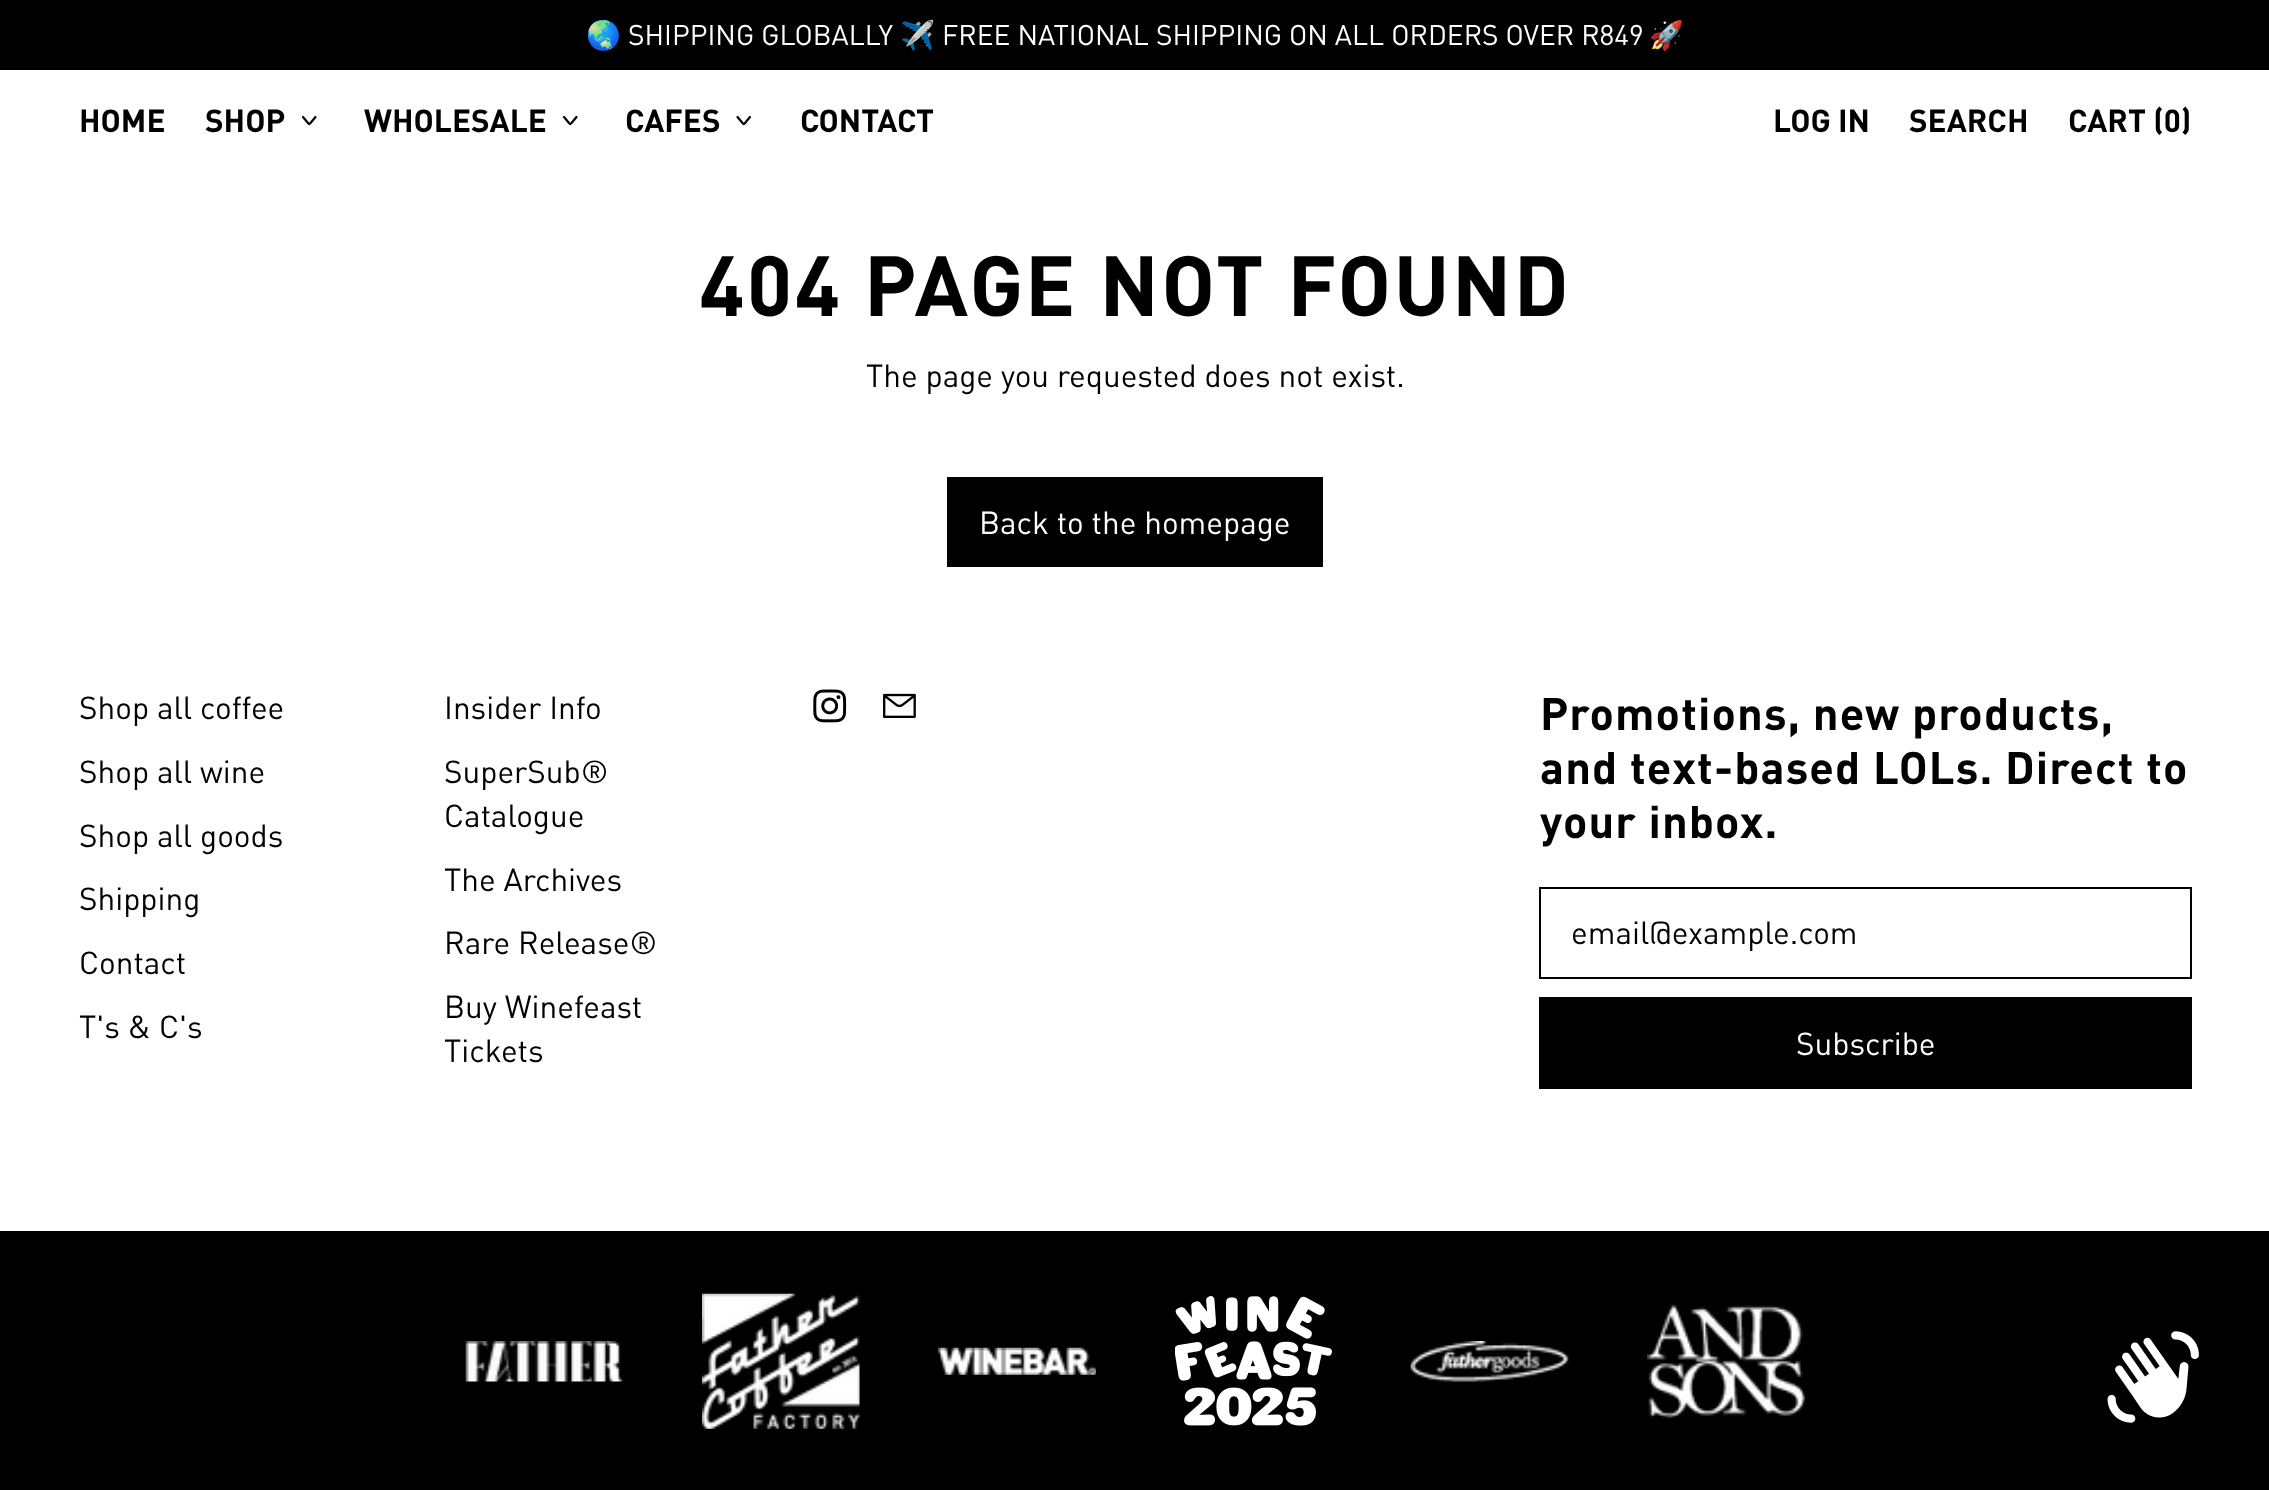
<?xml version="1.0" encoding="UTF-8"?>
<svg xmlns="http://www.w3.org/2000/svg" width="2269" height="1490">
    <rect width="100%" height="100%" fill="#FFFFFF"/>
    <rect x="0" y="0" width="2269" height="70" fill="#000000"/>
    <text x="586" y="45" font-family="Noto Color Emoji" font-size="28.1" fill="#FFFFFF">🌏</text>
    <text x="628" y="45" font-family="DIN" font-size="28.1" fill="#FFFFFF">SHIPPING GLOBALLY</text>
    <text x="900" y="45" font-family="Noto Color Emoji" font-size="28.1" fill="#FFFFFF">✈️</text>
    <text x="942" y="45" font-family="DIN" font-size="28.1" fill="#FFFFFF">FREE NATIONAL SHIPPING ON ALL ORDERS OVER R849</text>
    <text x="1649" y="45" font-family="Noto Color Emoji" font-size="28.1" fill="#FFFFFF">🚀</text>
    <text x="79" y="132" font-family="DIN" font-size="31.5" font-weight="700" fill="#000000">HOME</text>
    <text x="205" y="132" font-family="DIN" font-size="31.5" font-weight="700" fill="#000000">SHOP</text>
    <path d="M 303 117 L 308 123 C 309.5 124.5 309 124.5 310.5 123 L 315.5 117" fill="none" stroke="#000000" stroke-width="2.2" stroke-linecap="round" stroke-linejoin="round"/>
    <text x="364" y="132" font-family="DIN" font-size="31.5" font-weight="700" fill="#000000">WHOLESALE</text>
    <path d="M 564 117 L 569 123 C 570.5 124.5 570 124.5 571.5 123 L 576.5 117" fill="none" stroke="#000000" stroke-width="2.2" stroke-linecap="round" stroke-linejoin="round"/>
    <text x="625" y="132" font-family="DIN" font-size="31.5" font-weight="700" fill="#000000">CAFES</text>
    <path d="M 737.5 117 L 742.5 123 C 744 124.5 743.5 124.5 745 123 L 750 117" fill="none" stroke="#000000" stroke-width="2.2" stroke-linecap="round" stroke-linejoin="round"/>
    <text x="800" y="132" font-family="DIN" font-size="31.5" font-weight="700" fill="#000000">CONTACT</text>
    <text x="1773" y="132" font-family="DIN" font-size="31.5" font-weight="700" fill="#000000">LOG IN</text>
    <text x="1909" y="132" font-family="DIN" font-size="31.5" font-weight="700" fill="#000000">SEARCH</text>
    <text x="2068" y="132" font-family="DIN" font-size="31.5" font-weight="700" fill="#000000">CART (0)</text>
    <text x="699" y="316" font-family="DIN" font-size="84" font-weight="700" letter-spacing="2.1" fill="#000000">404 PAGE NOT FOUND</text>
    <text x="866" y="387" font-family="DIN" font-size="31.5" fill="#000000">The page you requested does not exist.</text>
    <rect x="947" y="477" width="376" height="90" fill="#000000"/>
    <text x="979" y="534" font-family="DIN" font-size="31.5" fill="#FFFFFF">Back to the homepage</text>
    <text x="79" y="719" font-family="DIN" font-size="31.5" fill="#000000">Shop all coffee</text>
    <text x="79" y="783" font-family="DIN" font-size="31.5" fill="#000000">Shop all wine</text>
    <text x="79" y="847" font-family="DIN" font-size="31.5" fill="#000000">Shop all goods</text>
    <text x="79" y="910" font-family="DIN" font-size="31.5" fill="#000000">Shipping</text>
    <text x="79" y="974" font-family="DIN" font-size="31.5" fill="#000000">Contact</text>
    <text x="79" y="1038" font-family="DIN" font-size="31.5" fill="#000000">T's &amp; C's</text>
    <text x="444" y="719" font-family="DIN" font-size="31.5" fill="#000000">Insider Info</text>
    <text font-family="DIN" font-size="31.5" fill="#000000">
        <tspan x="444" y="783">SuperSub®</tspan>
        <tspan x="444" y="827">Catalogue</tspan>
    </text>
    <text x="444" y="891" font-family="DIN" font-size="31.5" fill="#000000">The Archives</text>
    <text x="444" y="954" font-family="DIN" font-size="31.5" fill="#000000">Rare Release®</text>
    <text font-family="DIN" font-size="31.5" fill="#000000">
        <tspan x="444" y="1018">Buy Winefeast</tspan>
        <tspan x="444" y="1062">Tickets</tspan>
    </text>
    <image x="813" y="689" width="34" height="34" href="img_01.png"/>
    <image x="883" y="693" width="33" height="25" href="img_02.png"/>
    <text font-family="DIN" font-size="45" font-weight="700" letter-spacing="1.1" fill="#000000">
        <tspan x="1540" y="730">Promotions, new products,</tspan>
        <tspan x="1540" y="784">and text-based LOLs. Direct to</tspan>
        <tspan x="1540" y="838">your inbox.</tspan>
    </text>
    <rect x="1540" y="888" width="651" height="90" fill="none" stroke="#000000" stroke-width="2"/>
    <text x="1571" y="944" font-family="DIN" font-size="31.5" fill="#000000">email@example.com</text>
    <rect x="1539" y="997" width="653" height="92" fill="#000000"/>
    <text x="1796" y="1055" font-family="DIN" font-size="31.5" fill="#FFFFFF">Subscribe</text>
    <rect x="0" y="1231" width="2269" height="259" fill="#000000"/>
    <image x="465" y="1341" width="159" height="41" href="img_03.png"/>
    <image x="702" y="1293" width="158" height="136" href="img_04.png"/>
    <image x="938" y="1347" width="158" height="28" href="img_05.png"/>
    <image x="1175" y="1296" width="157" height="130" href="img_06.png"/>
    <image x="1410" y="1341" width="159" height="41" href="img_07.png"/>
    <image x="1647" y="1305" width="158" height="113" href="img_08.png"/>
    <image x="2107" y="1331" width="92" height="92" href="img_09.png"/>
</svg>
